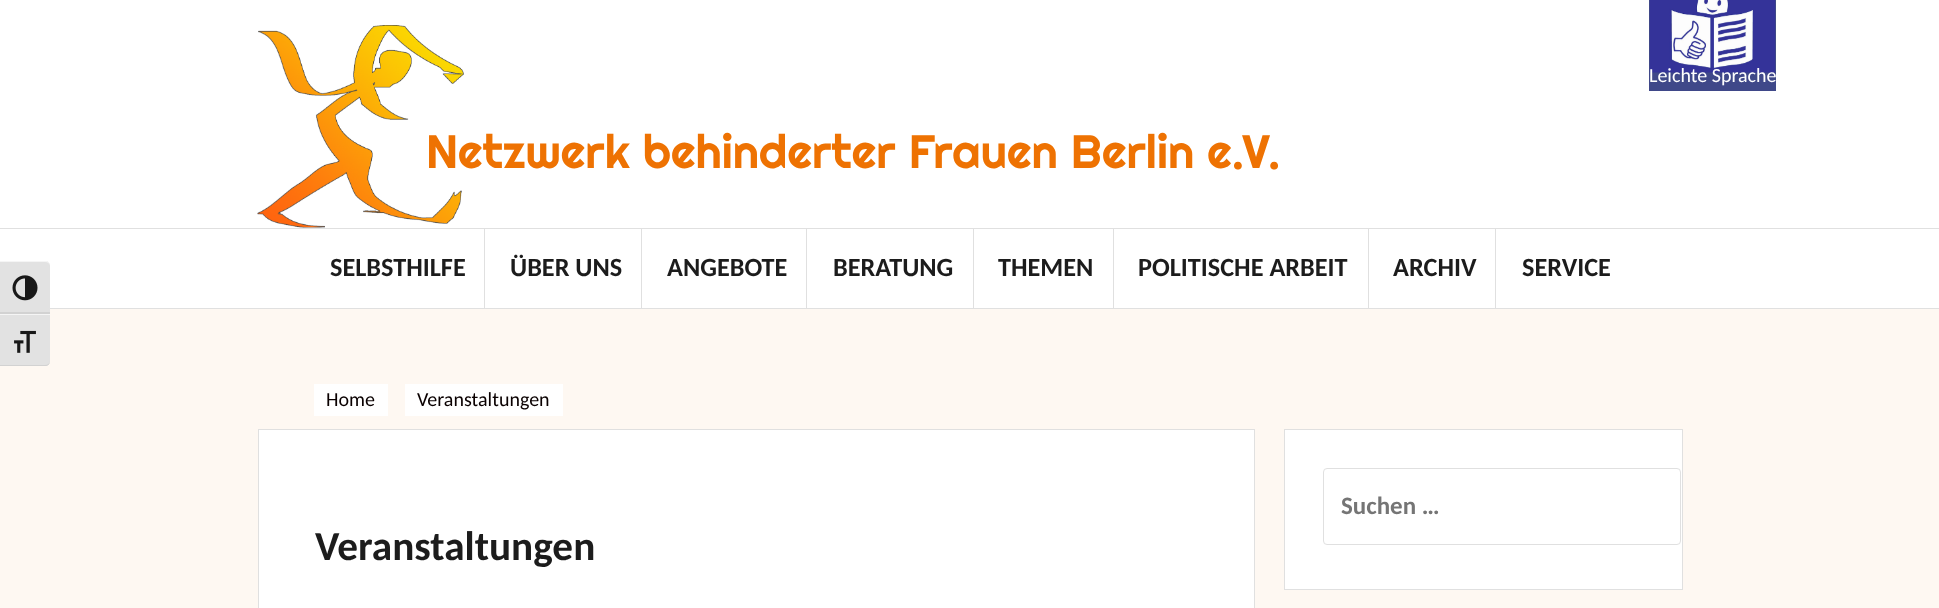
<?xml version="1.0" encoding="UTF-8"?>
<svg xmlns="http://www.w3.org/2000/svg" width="1939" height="608">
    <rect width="100%" height="100%" fill="#FEF8F2"/>
    <rect x="0" y="0" width="1939" height="308" fill="#FFFFFF"/>
    <path d="M 0 261 H 45 C 48 261 50 263 50 266 V 314 H 0 Z" fill="#E2E2E2"/>
    <path d="M 0 262 H 45 C 48 262 50 264 50 266 C 50 264 49 262 47 261 H 0 Z" fill="#F5F5F5"/>
    <rect x="0" y="312" width="50" height="2" fill="#D2D2D2"/>
    <image x="12" y="275" width="26" height="26" href="img_01.png"/>
    <path d="M 0 314 H 50 V 361 C 50 364 48 366 45 366 H 0 Z" fill="#E2E2E2"/>
    <rect x="0" y="314" width="50" height="1" fill="#F5F5F5"/>
    <path d="M 0 365 V 366 H 45 C 48 366 50 364 50 361 C 50 363 48 365 45 365 Z" fill="#D2D2D2"/>
    <image x="14" y="330" width="22" height="23" href="img_02.png"/>
    <rect x="314" y="384" width="74" height="32" fill="#FFFFFF"/>
    <text x="326" y="406" font-family="Carlito" font-size="20" fill="#0A0000">Home</text>
    <rect x="405" y="384" width="158" height="32" fill="#FFFFFF"/>
    <text x="417" y="406" font-family="Carlito" font-size="20" fill="#0A0000">Veranstaltungen</text>
    <rect x="1649" y="0" width="127" height="91" fill="#3F4889"/>
    <image x="1650" y="0" width="125" height="73" href="img_03.png"/>
    <text x="1649" y="82" font-family="Carlito" font-size="20" fill="#FFFFFF">Leichte Sprache</text>
    <rect x="1284.5" y="429.5" width="398" height="160" fill="#FFFFFF" stroke="#E0E0E0"/>
    <rect x="1323.5" y="468.5" width="357" height="76" rx="3.5" fill="none" stroke="#E0E0E0"/>
    <text x="1341" y="514" font-family="Carlito" font-size="25" font-weight="700" fill="#757575">Suchen …</text>
    <rect x="258.5" y="429.5" width="996" height="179" fill="#FFFFFF" stroke="#E0E0E0"/>
    <text x="315" y="560" font-family="Carlito" font-size="41.25" font-weight="700" fill="#1C1C1C">Veranstaltungen</text>
    <image x="257" y="25" width="207" height="203" href="img_04.png"/>
    <text x="426" y="168" font-family="Righteous" font-size="46.75" fill="#EE7202">Netzwerk behinderter Frauen Berlin e.V.</text>
    <rect x="0" y="228" width="1939" height="1" fill="#E0E0E0"/>
    <rect x="50" y="308" width="1889" height="1" fill="#E0E0E0"/>
    <rect x="484" y="229" width="1" height="79" fill="#E0E0E0"/>
    <text x="330" y="276" font-family="Carlito" font-size="26.25" font-weight="700" fill="#1C1C1C">SELBSTHILFE</text>
    <rect x="641" y="229" width="1" height="79" fill="#E0E0E0"/>
    <text x="510" y="276" font-family="Carlito" font-size="26.25" font-weight="700" fill="#1C1C1C">ÜBER UNS</text>
    <rect x="806" y="229" width="1" height="79" fill="#E0E0E0"/>
    <text x="667" y="276" font-family="Carlito" font-size="26.25" font-weight="700" fill="#1C1C1C">ANGEBOTE</text>
    <rect x="973" y="229" width="1" height="79" fill="#E0E0E0"/>
    <text x="833" y="276" font-family="Carlito" font-size="26.25" font-weight="700" fill="#1C1C1C">BERATUNG</text>
    <rect x="1113" y="229" width="1" height="79" fill="#E0E0E0"/>
    <text x="998" y="276" font-family="Carlito" font-size="26.25" font-weight="700" fill="#1C1C1C">THEMEN</text>
    <rect x="1368" y="229" width="1" height="79" fill="#E0E0E0"/>
    <text x="1138" y="276" font-family="Carlito" font-size="26.25" font-weight="700" fill="#1C1C1C">POLITISCHE ARBEIT</text>
    <rect x="1495" y="229" width="1" height="79" fill="#E0E0E0"/>
    <text x="1393" y="276" font-family="Carlito" font-size="26.25" font-weight="700" fill="#1C1C1C">ARCHIV</text>
    <text x="1522" y="276" font-family="Carlito" font-size="26.25" font-weight="700" fill="#1C1C1C">SERVICE</text>
</svg>
